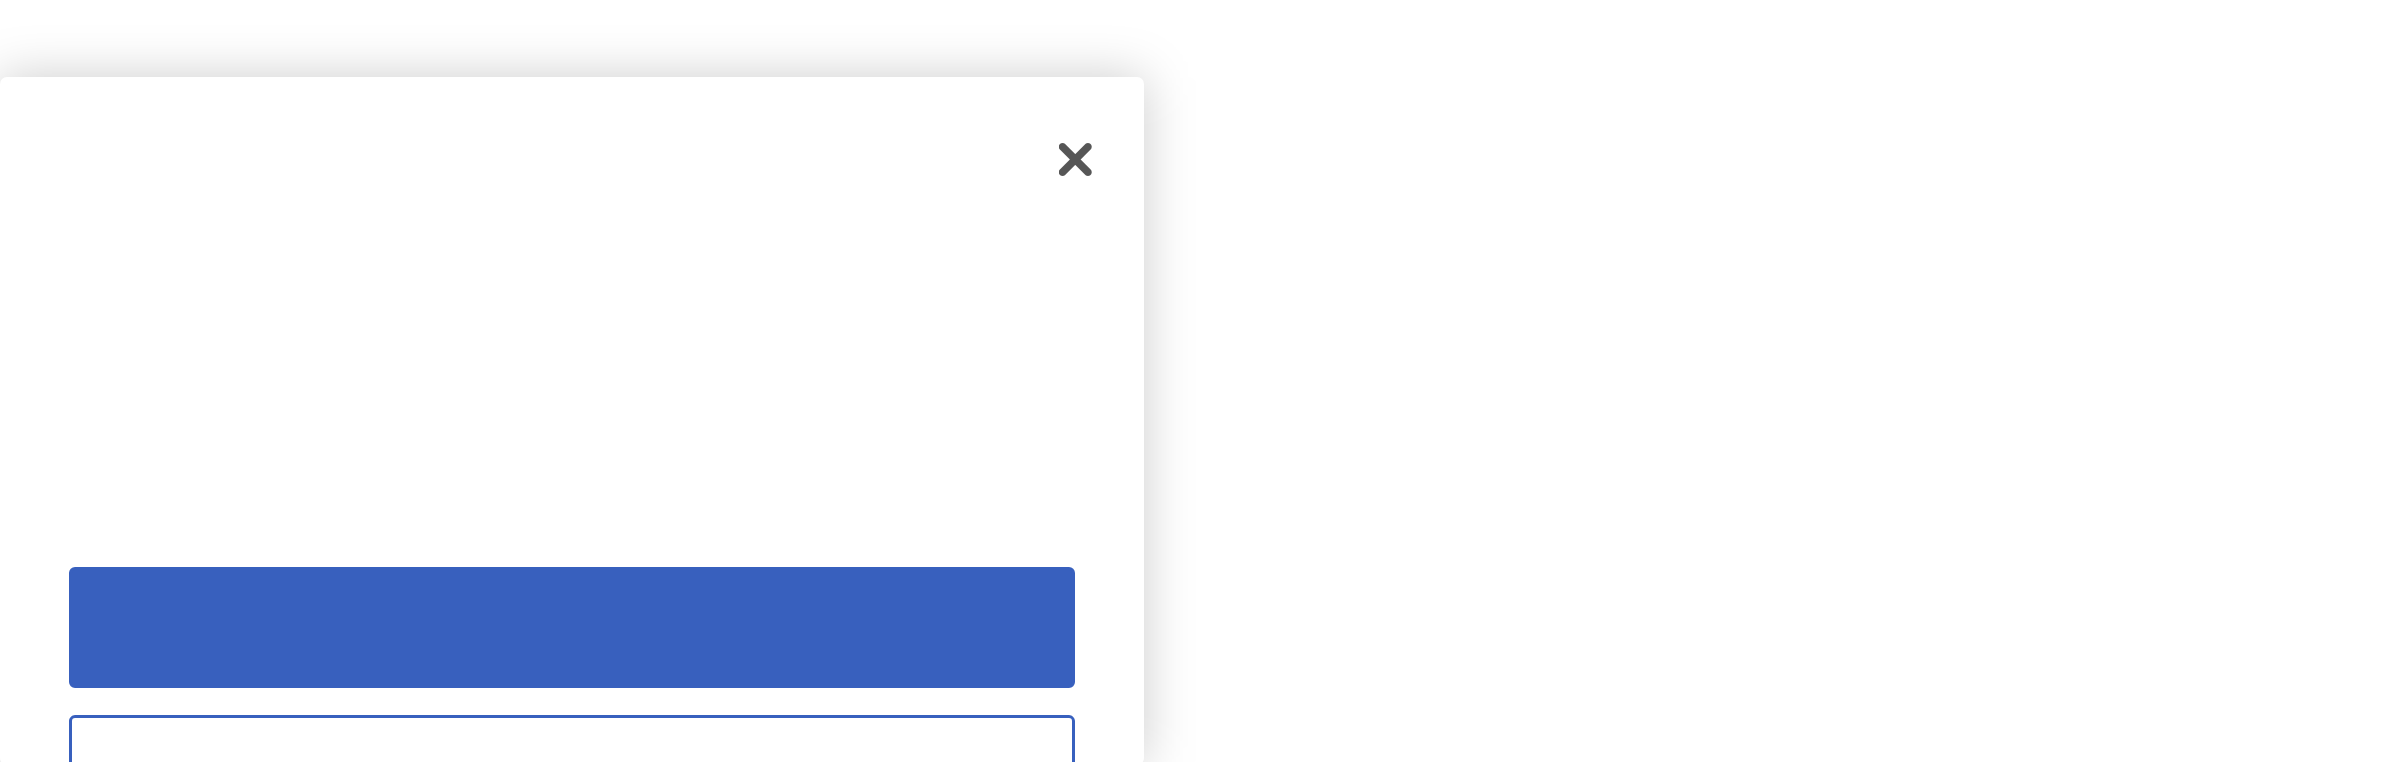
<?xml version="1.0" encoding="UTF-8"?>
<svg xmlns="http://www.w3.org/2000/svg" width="2383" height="762">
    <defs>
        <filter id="blur1" x="-50%" y="-200%" width="200%" height="500%"><feGaussianBlur stdDeviation="25"/></filter>
    </defs>
    <rect width="100%" height="100%" fill="#FFFFFF"/>
    <rect x="0" y="77" width="1144" height="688" rx="7" fill="#000000" fill-opacity="0.2" filter="url(#blur1)"/>
    <rect x="0" y="77" width="1144" height="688" rx="7" fill="#FFFFFF"/>
    <image x="1059" y="143" width="33" height="33" href="img_01.png"/>
    <rect x="70.5" y="568.5" width="1003" height="118" rx="4.5" fill="#3860BE" stroke="#3860BE" stroke-width="3"/>
    <path d="M 75 715 C 72 715 69 718 69 721 V 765 H 72 V 721 C 72 719 73 718 75 718 H 1069 C 1071 718 1072 719 1072 721 V 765 H 1075 V 721 C 1075 718 1072 715 1069 715 Z" fill="#3860BE"/>
</svg>
